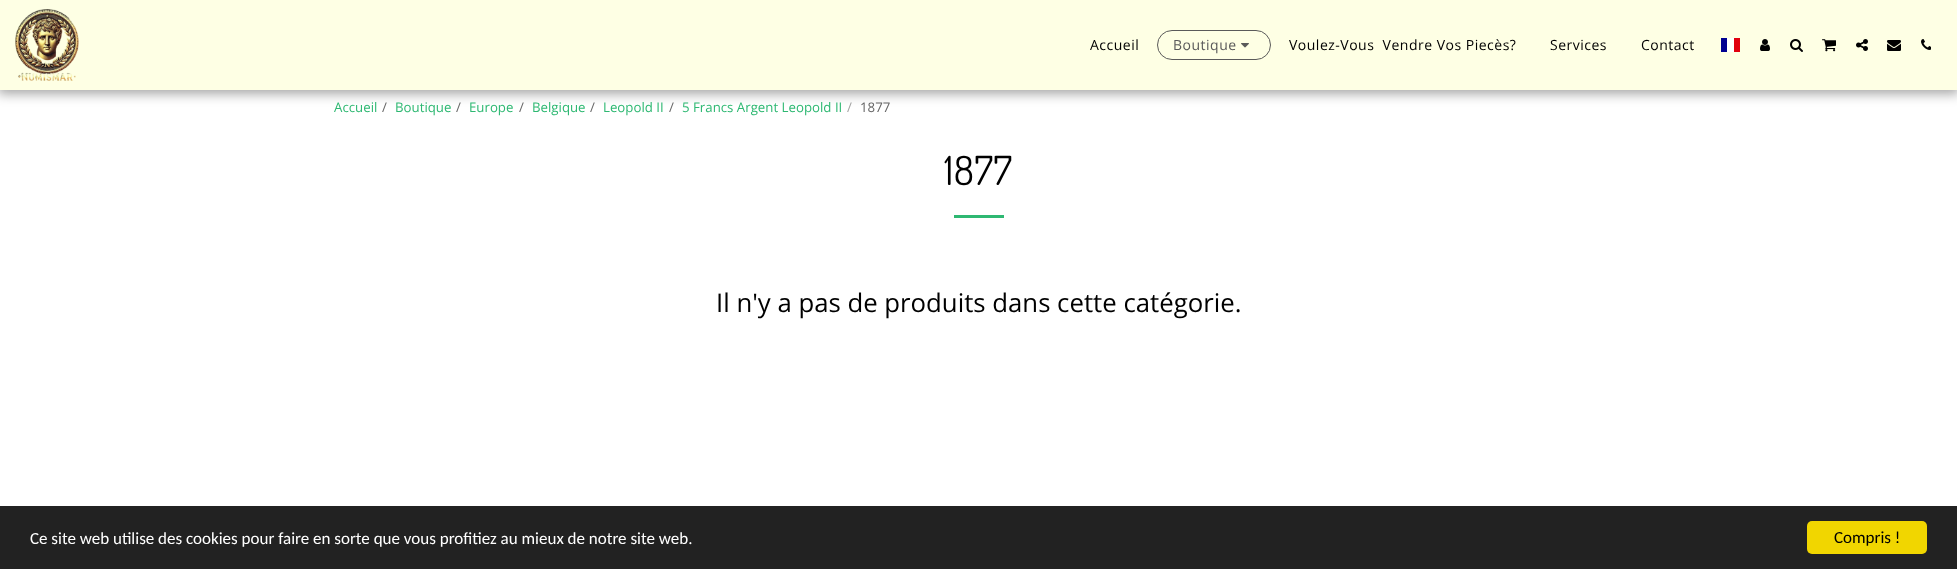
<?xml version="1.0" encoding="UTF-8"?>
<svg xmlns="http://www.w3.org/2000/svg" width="1957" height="569">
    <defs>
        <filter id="blur1" x="-50%" y="-200%" width="200%" height="500%"><feGaussianBlur stdDeviation="6"/></filter>
    </defs>
    <rect width="100%" height="100%" fill="#FFFFFF"/>
    <rect x="-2" y="0" width="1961" height="94" fill="#000000" fill-opacity="0.35" filter="url(#blur1)"/>
    <rect x="0" y="0" width="1957" height="90" fill="#FEFFE4"/>
    <image x="15" y="9" width="64" height="72" href="img_01.png"/>
    <text x="1090" y="50" font-family="Open Sans" font-size="14" letter-spacing="0.5" fill="#000000">Accueil</text>
    <rect x="1157.5" y="30.5" width="113" height="29" rx="14.5" fill="none" stroke="#5A5A5A"/>
    <text x="1173" y="50" font-family="Open Sans" font-size="14" letter-spacing="0.5" fill="#5A5A5A">Boutique</text>
    <image x="1241" y="43" width="8" height="5" href="img_02.png"/>
    <text x="1289" y="50" font-family="Open Sans" font-size="14" letter-spacing="0.5" fill="#000000" xml:space="preserve">Voulez-Vous  Vendre Vos Piecès?</text>
    <text x="1550" y="50" font-family="Open Sans" font-size="14" letter-spacing="0.5" fill="#000000">Services</text>
    <text x="1641" y="50" font-family="Open Sans" font-size="14" letter-spacing="0.5" fill="#000000">Contact</text>
    <rect x="1727" y="38" width="7" height="14" fill="#FFFFFF"/>
    <rect x="1721" y="38" width="6" height="14" fill="#000091"/>
    <rect x="1734" y="38" width="6" height="14" fill="#E1000F"/>
    <image x="1760" y="39" width="10" height="12" href="img_03.png"/>
    <image x="1790" y="39" width="13" height="13" href="img_04.png"/>
    <image x="1822" y="39" width="14" height="13" href="img_05.png"/>
    <image x="1856" y="39" width="12" height="12" href="img_06.png"/>
    <image x="1887" y="40" width="14" height="11" href="img_07.png"/>
    <image x="1921" y="39" width="10" height="11" href="img_08.png"/>
    <text x="334" y="112" font-family="Open Sans" font-size="13.25" fill="#2EB872">Accueil</text>
    <text x="382" y="112" font-family="Open Sans" font-size="13.25" fill="#666666">/</text>
    <text x="395" y="112" font-family="Open Sans" font-size="13.25" fill="#2EB872">Boutique</text>
    <text x="456" y="112" font-family="Open Sans" font-size="13.25" fill="#666666">/</text>
    <text x="469" y="112" font-family="Open Sans" font-size="13.25" fill="#2EB872">Europe</text>
    <text x="519" y="112" font-family="Open Sans" font-size="13.25" fill="#666666">/</text>
    <text x="532" y="112" font-family="Open Sans" font-size="13.25" fill="#2EB872">Belgique</text>
    <text x="590" y="112" font-family="Open Sans" font-size="13.25" fill="#666666">/</text>
    <text x="603" y="112" font-family="Open Sans" font-size="13.25" fill="#2EB872">Leopold II</text>
    <text x="669" y="112" font-family="Open Sans" font-size="13.25" fill="#666666">/</text>
    <text x="682" y="112" font-family="Open Sans" font-size="13.25" fill="#2EB872">5 Francs Argent Leopold II</text>
    <text x="847" y="112" font-family="Open Sans" font-size="13.25" fill="#A3A3A3">/</text>
    <text x="860" y="112" font-family="Open Sans" font-size="13.25" fill="#666666">1877</text>
    <text x="944" y="185" font-family="Dosis" font-size="40" letter-spacing="0.5" fill="#000000">1877</text>
    <rect x="954" y="215" width="50" height="3" fill="#2EB872"/>
    <text x="716" y="312" font-family="Open Sans" font-size="25.75" fill="#000000">Il n'y a pas de produits dans cette catégorie.</text>
    <rect x="0" y="506" width="1957" height="63" fill="#222222"/>
    <text x="30" y="544" font-family="Carlito" font-size="17" fill="#FFFFFF">Ce site web utilise des cookies pour faire en sorte que vous profitiez au mieux de notre site web.</text>
    <rect x="1807" y="521" width="120" height="33" rx="5" fill="#F1D600"/>
    <text x="1834" y="543" font-family="Carlito" font-size="17" fill="#000000">Compris !</text>
</svg>
